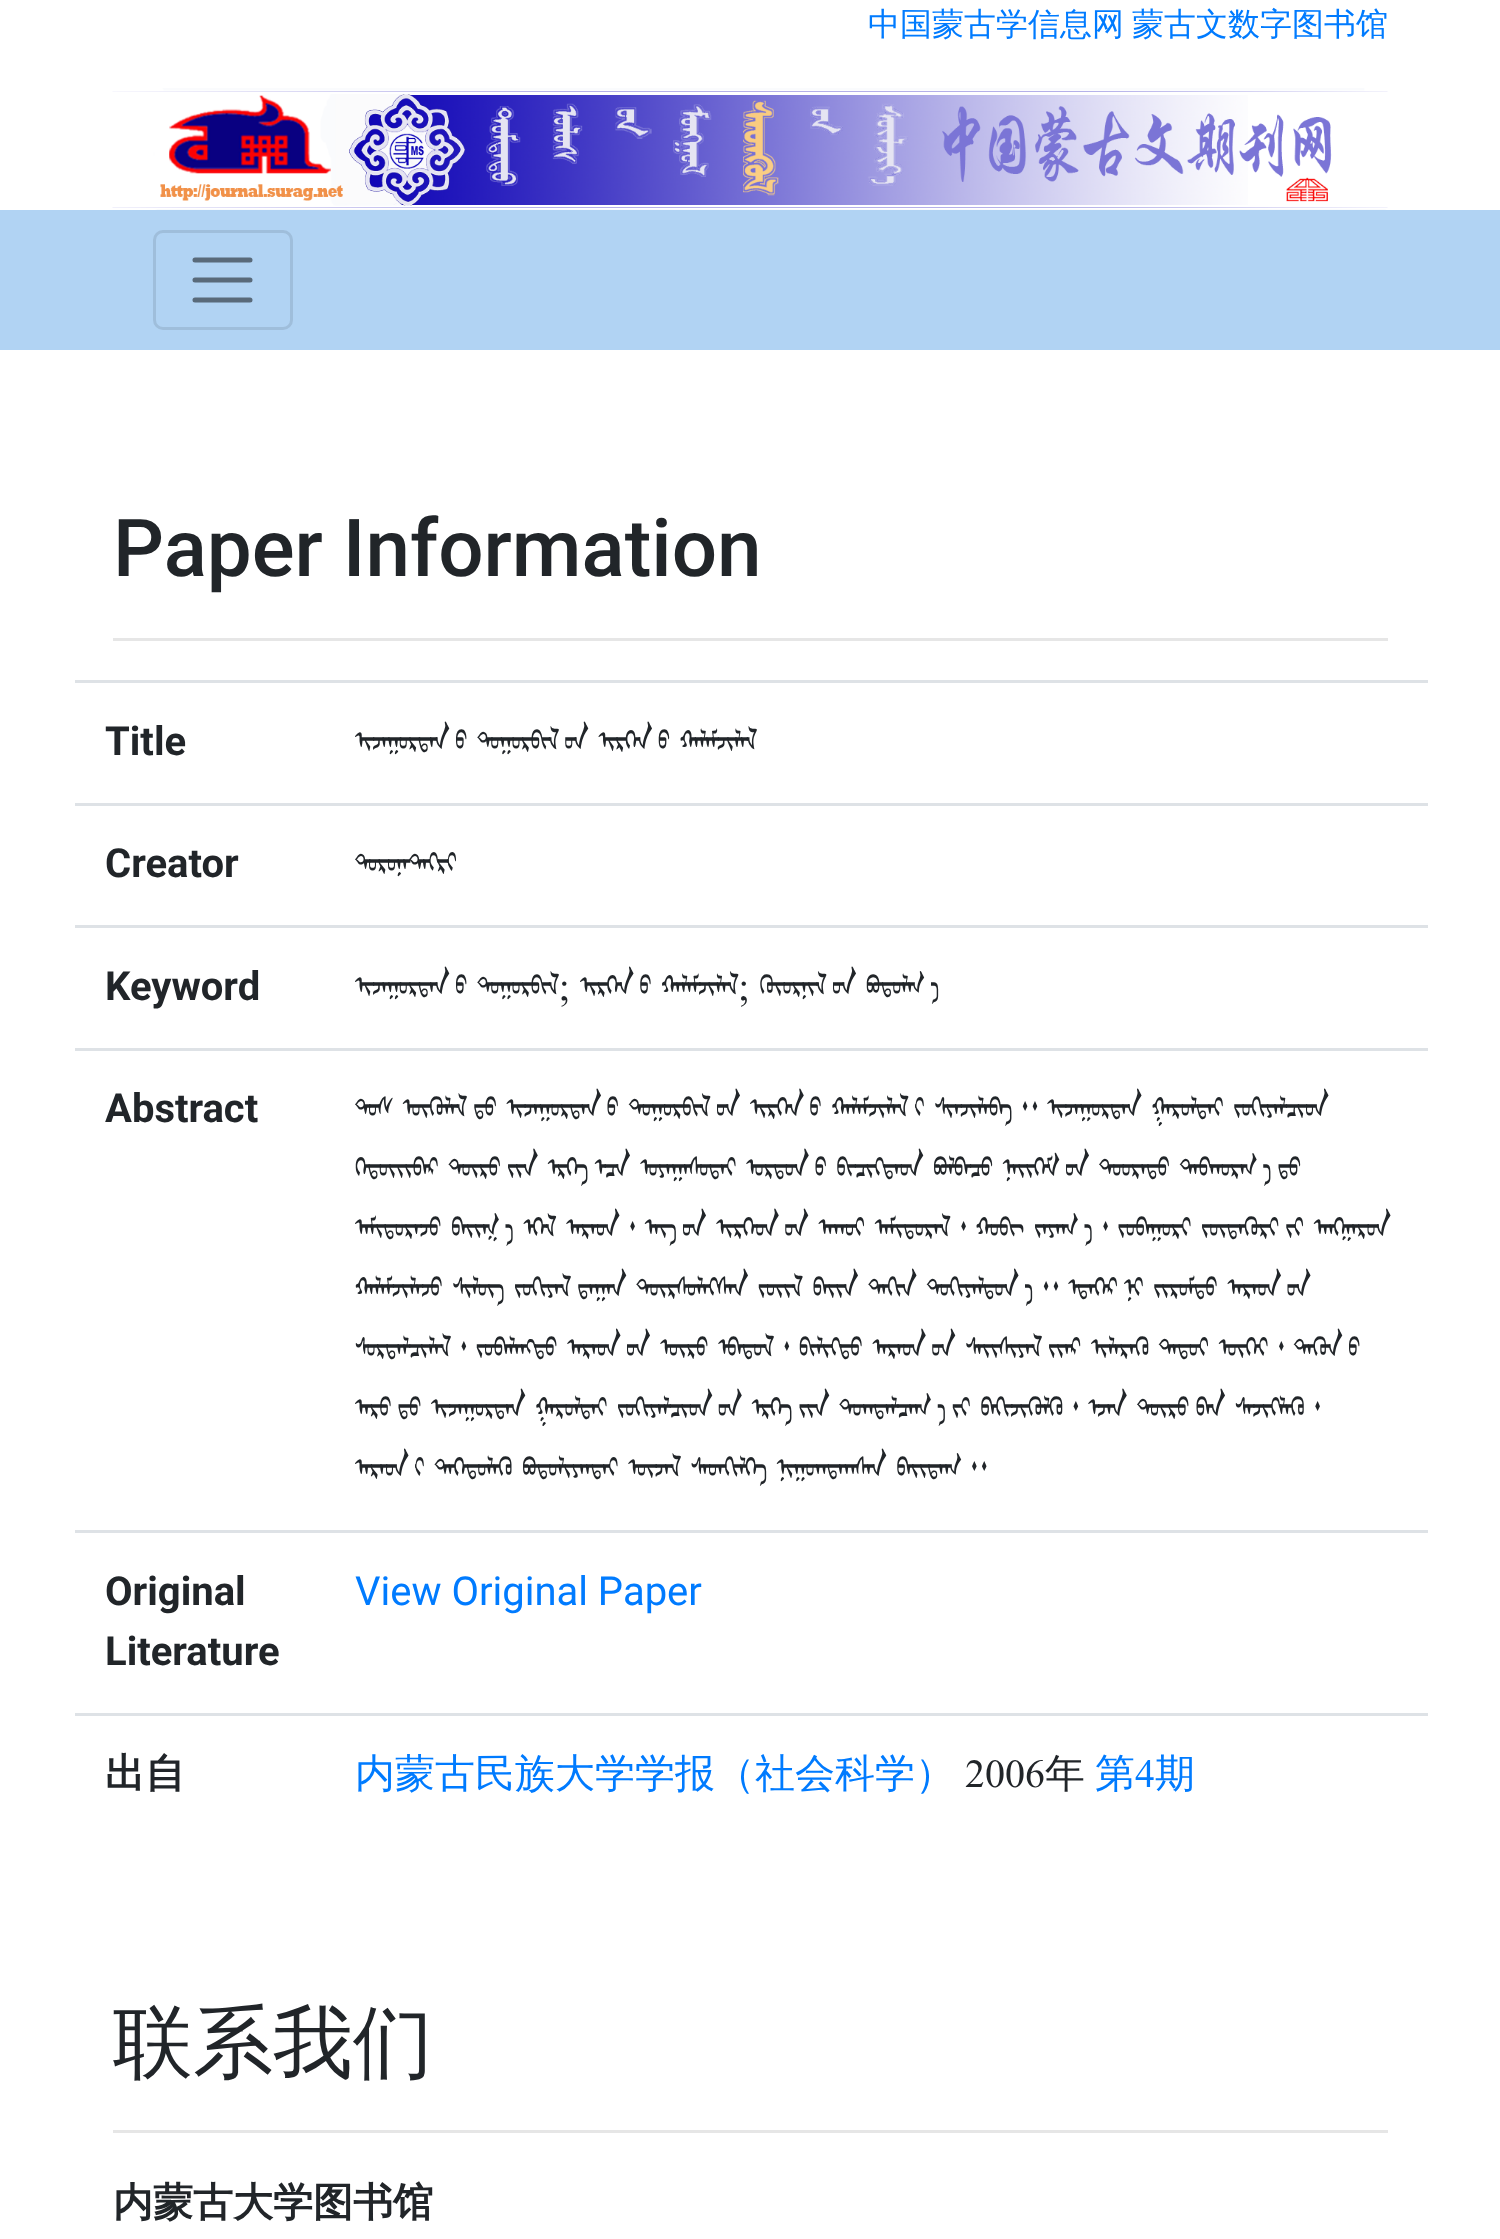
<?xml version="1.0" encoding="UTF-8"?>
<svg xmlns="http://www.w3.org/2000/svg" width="1500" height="2239">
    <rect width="100%" height="100%" fill="#FFFFFF"/>
    <text x="868" y="35" font-family="WenQuanYi Zen Hei" font-size="32" font-weight="500" fill="#007BFF">中国蒙古学信息网</text>
    <text x="1132" y="35" font-family="WenQuanYi Zen Hei" font-size="32" font-weight="500" fill="#007BFF">蒙古文数字图书馆</text>
    <image x="112" y="88" width="1276" height="122" href="img_01.png"/>
    <rect x="0" y="210" width="1500" height="140" fill="#B1D3F3"/>
    <rect x="154.5" y="231.5" width="137" height="97" rx="8.5" fill="none" stroke="#9FBEDB" stroke-width="3"/>
    <path d="M 195 260 H 250 M 195 280 H 250 M 195 300 H 250" fill="none" stroke="#596A7A" stroke-width="5" stroke-linecap="round"/>
    <text x="113" y="576" font-family="Roboto" font-size="80" font-weight="500" fill="#212529">Paper Information</text>
    <rect x="113" y="638" width="1275" height="3" fill="#E6E6E6"/>
    <text x="105" y="755" font-family="Roboto" font-size="40" font-weight="700" fill="#212529">Title</text>
    <rect x="75" y="680" width="1353" height="3" fill="#DEE2E6"/>
    <text x="355" y="755" font-family="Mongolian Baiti" font-size="40" fill="#212529">ᠢᠵᠠᠭᠤᠷᠲᠠᠨ ᠤ ᠲᠤᠭᠤᠷᠪᠢᠯ ᠤᠨ ᠢᠷᠭᠡᠨ ᠤ ᠬᠠᠯᠠᠮᠵᠢᠯᠠᠯ</text>
    <text x="105" y="877" font-family="Roboto" font-size="40" font-weight="700" fill="#212529">Creator</text>
    <rect x="75" y="803" width="1353" height="3" fill="#DEE2E6"/>
    <text x="355" y="877" font-family="Mongolian Baiti" font-size="40" fill="#212529">ᠳᠣᠷᠣᠨᠠᠲ᠋ᠡᠭᠷᠢ</text>
    <text x="105" y="1000" font-family="Roboto" font-size="40" font-weight="700" fill="#212529">Keyword</text>
    <rect x="75" y="925" width="1353" height="3" fill="#DEE2E6"/>
    <text x="355" y="1000" font-family="Mongolian Baiti" font-size="40" fill="#212529">ᠢᠵᠠᠭᠤᠷᠲᠠᠨ ᠤ ᠲᠤᠭᠤᠷᠪᠢᠯ; ᠢᠷᠭᠡᠨ ᠤ ᠬᠠᠯᠠᠮᠵᠢᠯᠠᠯ; ᠬᠦᠦᠷᠨᠢᠯ ᠤᠨ ᠪᠣᠳᠤᠯᠭ᠋ ᠠ</text>
    <text x="105" y="1122" font-family="Roboto" font-size="40" font-weight="700" fill="#212529">Abstract</text>
    <rect x="75" y="1048" width="1353" height="3" fill="#DEE2E6"/>
    <text font-family="Mongolian Baiti" font-size="40" fill="#212529">
        <tspan x="355" y="1122">ᠲᠤᠰ ᠦᠭᠦᠯᠡᠯ ᠳᠤ ᠢᠵᠠᠭᠤᠷᠲᠠᠨ ᠤ ᠲᠤᠭᠤᠷᠪᠢᠯ ᠤᠨ ᠢᠷᠭᠡᠨ ᠤ ᠬᠠᠯᠠᠮᠵᠢᠯᠠᠯ ᠢ ᠰᠢᠨᠵᠢᠯᠡᠪᠡ᠃ ᠢᠵᠠᠭᠤᠷᠲᠠᠨ ᠭᠠᠷᠤᠯᠲᠠᠢ ᠵᠣᠬᠢᠶᠠᠯᠴᠢᠳ</tspan>
        <tspan x="355" y="1182">ᠬᠡᠳᠦᠢᠢᠪᠡᠷ ᠲᠦᠷᠦ ᠵᠢᠨ ᠡᠷᠬᠡ ᠡᠴᠡ ᠤᠶᠠᠭᠠᠰᠤᠲᠠᠢ ᠣᠷᠳᠤᠨ ᠤ ᠪᠢᠴᠢᠭ᠍ᠲᠡᠳ ᠪᠣᠯᠪᠠᠴᠦ ᠨᠡᠶᠢᠭᠡᠮ ᠤᠨ ᠳᠣᠣᠷᠠᠲᠤ ᠳᠠᠪᠬᠤᠷᠭ᠋ ᠠ ᠳᠤ</tspan>
        <tspan x="355" y="1242">ᠠᠮᠢᠳᠤᠷᠠᠵᠤ ᠪᠠᠶᠢᠬ᠋ ᠠ ᠡᠭᠡᠯ ᠠᠷᠠᠳ᠂ ᠡᠩ ᠤᠨ ᠢᠷᠭᠡᠳ ᠤᠨ ᠠᠬᠤᠢ ᠠᠮᠢᠳᠤᠷᠠᠯ᠂ ᠬᠣᠪᠢ ᠵᠠᠶᠠᠭ᠋ ᠠ᠂ ᠵᠣᠪᠠᠭᠤᠷᠢ ᠵᠦᠳᠡᠭᠦᠷᠢ ᠵᠢ ᠠᠩᠭᠠᠷᠤᠨ</tspan>
        <tspan x="355" y="1302">ᠬᠠᠯᠠᠮᠵᠢᠯᠠᠵᠤ ᠰᠢᠯᠦᠭ ᠵᠣᠬᠢᠶᠠᠯ ᠳᠠᠭᠠᠨ ᠳᠦᠷᠰᠦᠯᠡᠭᠰᠡᠨ ᠵᠦᠢᠯ ᠪᠠᠶᠢᠨ ᠳᠠᠬᠢᠨ ᠲᠣᠬᠢᠶᠠᠯᠳᠤᠨ᠌ ᠠ᠃ ᠡᠳᠡᠭᠡᠷ ᠨᠢ ᠵᠢᠷᠤᠮᠲᠤ ᠠᠷᠠᠳ ᠤᠨ</tspan>
        <tspan x="355" y="1362">ᠰᠤᠷᠲᠠᠯᠴᠢᠯᠠᠯ᠂ ᠵᠣᠪᠠᠯᠠᠩᠲᠤ ᠠᠷᠠᠳ ᠤᠨ ᠦᠷᠦ ᠡᠪᠡᠳᠦᠯ᠂ ᠪᠢᠯᠢᠭ᠍ᠲᠦ ᠠᠷᠠᠳ ᠤᠨ ᠰᠠᠶᠢᠰᠢᠶᠠᠯ ᠵᠢᠡᠷ ᠢᠯᠡᠷᠡᠬᠦ ᠲᠡᠳᠦᠢ ᠦᠭᠡᠢ᠂ ᠲᠡᠭᠦᠨ ᠤ</tspan>
        <tspan x="355" y="1422">ᠠᠷᠤ ᠳᠤ ᠢᠵᠠᠭᠤᠷᠲᠠᠨ ᠭᠠᠷᠤᠯᠲᠠᠢ ᠵᠣᠬᠢᠶᠠᠯᠴᠢᠳ ᠤᠨ ᠡᠷᠬᠡ ᠵᠢᠨ ᠲᠣᠭᠲᠠᠯᠴᠠᠭ᠋ ᠠ ᠵᠢ ᠪᠡᠬᠢᠵᠢᠭᠦᠯᠬᠦ᠂ ᠡᠵᠡᠨ ᠲᠦᠷᠦ ᠪᠡᠨ ᠰᠡᠵᠢᠭᠯᠡᠬᠦ᠂</tspan>
        <tspan x="355" y="1482">ᠠᠷᠠᠳ ᠢ ᠳᠡᠭᠡᠳᠦᠯᠡᠬᠦ ᠪᠣᠳᠤᠯᠢᠶᠠᠨᠲᠠᠢ ᠦᠵᠡᠯ ᠰᠡᠳᠬᠢᠯᠭᠡ ᠨᠢᠭᠤᠭᠳᠠᠭᠰᠠᠨ ᠪᠠᠶᠢᠳᠠᠭ᠃</tspan>
    </text>
    <text font-family="Roboto" font-size="40" font-weight="700" fill="#212529">
        <tspan x="105" y="1605">Original</tspan>
        <tspan x="105" y="1665">Literature</tspan>
    </text>
    <rect x="75" y="1530" width="1353" height="3" fill="#DEE2E6"/>
    <text x="355" y="1605" font-family="Roboto" font-size="40" fill="#007BFF">View Original Paper</text>
    <text x="105" y="1787" font-family="WenQuanYi Zen Hei" font-size="40" font-weight="700" fill="#212529">出自</text>
    <rect x="75" y="1713" width="1353" height="3" fill="#DEE2E6"/>
    <text x="355" y="1787" font-family="WenQuanYi Zen Hei" font-size="40" font-weight="500" fill="#007BFF">内蒙古民族大学学报（社会科学）</text>
    <text x="965" y="1787" font-family="Mongolian Baiti" font-size="40" fill="#212529">2006</text>
    <text x="1045" y="1787" font-family="WenQuanYi Zen Hei" font-size="40" font-weight="500" fill="#212529">年</text>
    <text x="1095" y="1787" font-family="WenQuanYi Zen Hei" font-size="40" font-weight="500" fill="#007BFF">第</text>
    <text x="1135" y="1787" font-family="Mongolian Baiti" font-size="40" fill="#007BFF">4</text>
    <text x="1155" y="1787" font-family="WenQuanYi Zen Hei" font-size="40" font-weight="500" fill="#007BFF">期</text>
    <text x="113" y="2070" font-family="WenQuanYi Zen Hei" font-size="80" font-weight="500" fill="#212529">联系我们</text>
    <rect x="113" y="2130" width="1275" height="3" fill="#E6E6E6"/>
    <text x="113" y="2216" font-family="WenQuanYi Zen Hei" font-size="40" font-weight="700" fill="#212529">内蒙古大学图书馆</text>
</svg>
